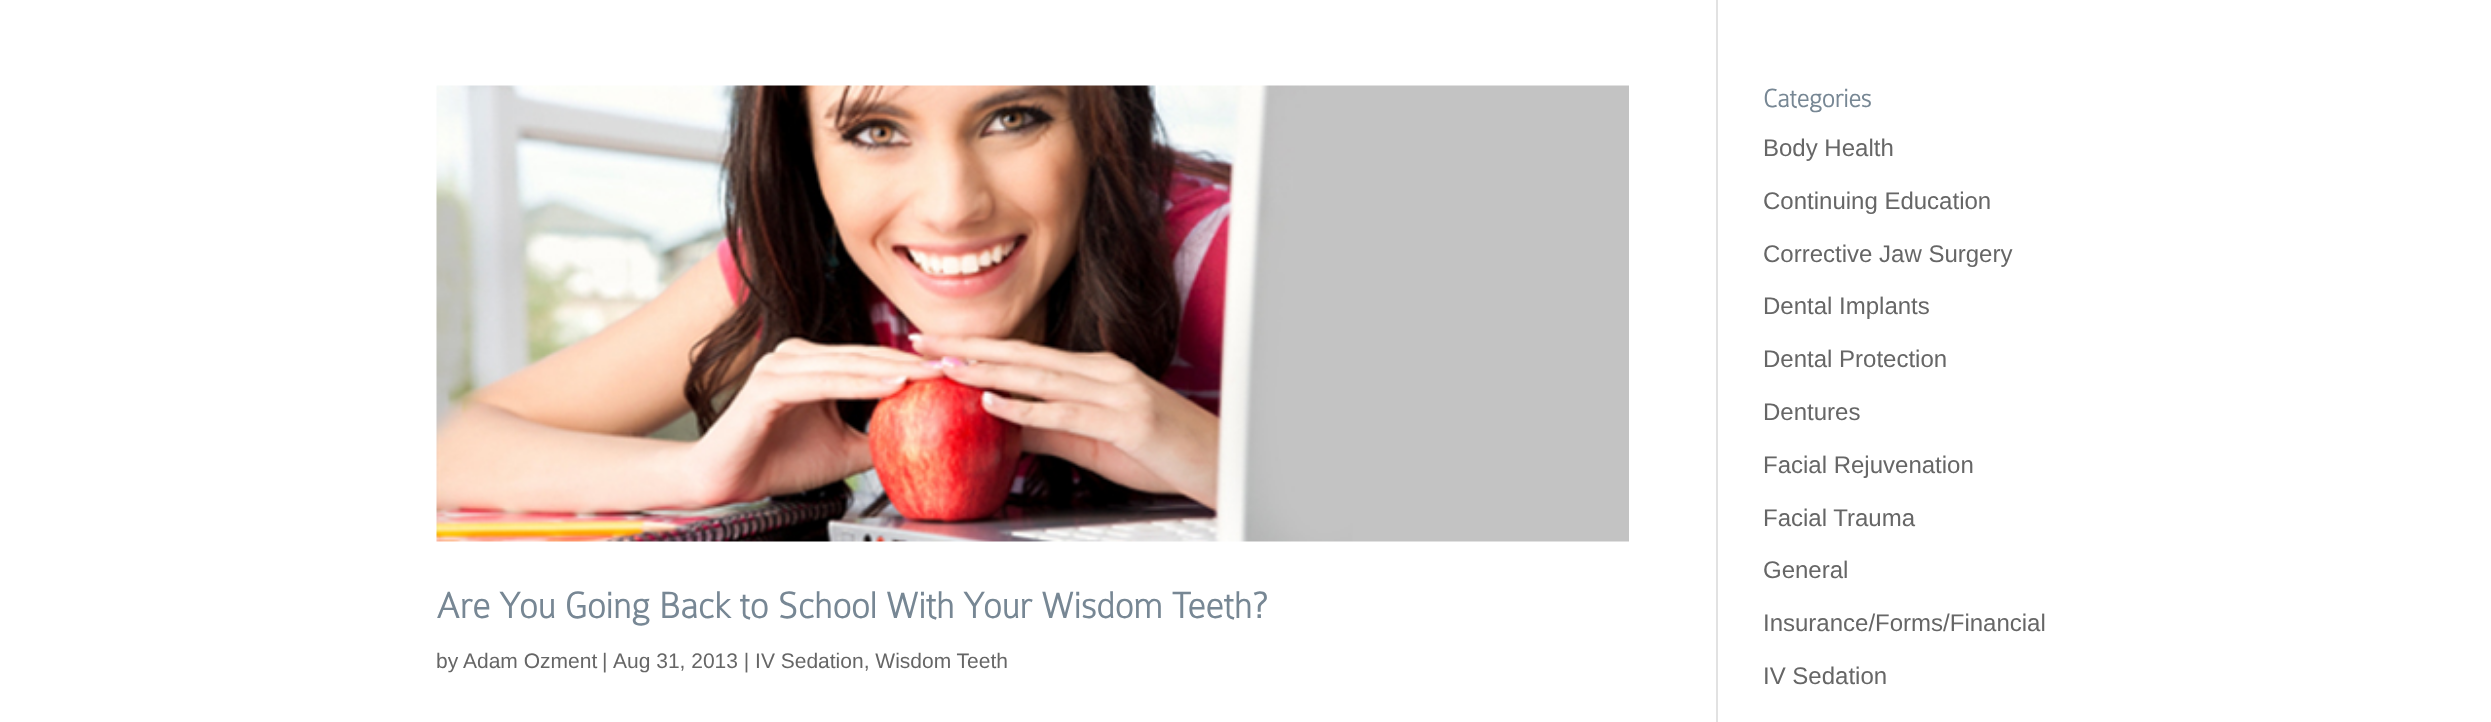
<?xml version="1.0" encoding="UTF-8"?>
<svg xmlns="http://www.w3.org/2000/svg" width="2491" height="722">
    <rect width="100%" height="100%" fill="#FFFFFF"/>
    <rect x="1716" y="0" width="2" height="722" fill="#E2E2E2"/>
    <image x="436" y="85" width="1193" height="457" href="img_01.png"/>
    <text x="436" y="618" font-family="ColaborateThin" font-size="39" font-weight="700" fill="#778794">Are You Going Back to School With Your Wisdom Teeth?</text>
    <text x="436" y="668" font-family="Liberation Sans" font-size="21" fill="#666666">by</text>
    <text x="463" y="668" font-family="Liberation Sans" font-size="21" fill="#666666">Adam Ozment</text>
    <text x="602" y="668" font-family="Liberation Sans" font-size="21" fill="#666666">|</text>
    <text x="613" y="668" font-family="Liberation Sans" font-size="21" fill="#666666">Aug 31, 2013 | IV Sedation, Wisdom Teeth</text>
    <text x="1763" y="107" font-family="ColaborateThin" font-size="27" font-weight="700" fill="#778794">Categories</text>
    <text x="1763" y="156" font-family="Liberation Sans" font-size="24" fill="#666666">Body Health</text>
    <text x="1763" y="209" font-family="Liberation Sans" font-size="24" fill="#666666">Continuing Education</text>
    <text x="1763" y="262" font-family="Liberation Sans" font-size="24" fill="#666666">Corrective Jaw Surgery</text>
    <text x="1763" y="314" font-family="Liberation Sans" font-size="24" fill="#666666">Dental Implants</text>
    <text x="1763" y="367" font-family="Liberation Sans" font-size="24" fill="#666666">Dental Protection</text>
    <text x="1763" y="420" font-family="Liberation Sans" font-size="24" fill="#666666">Dentures</text>
    <text x="1763" y="473" font-family="Liberation Sans" font-size="24" fill="#666666">Facial Rejuvenation</text>
    <text x="1763" y="526" font-family="Liberation Sans" font-size="24" fill="#666666">Facial Trauma</text>
    <text x="1763" y="578" font-family="Liberation Sans" font-size="24" fill="#666666">General</text>
    <text x="1763" y="631" font-family="Liberation Sans" font-size="24" fill="#666666">Insurance/Forms/Financial</text>
    <text x="1763" y="684" font-family="Liberation Sans" font-size="24" fill="#666666">IV Sedation</text>
</svg>
